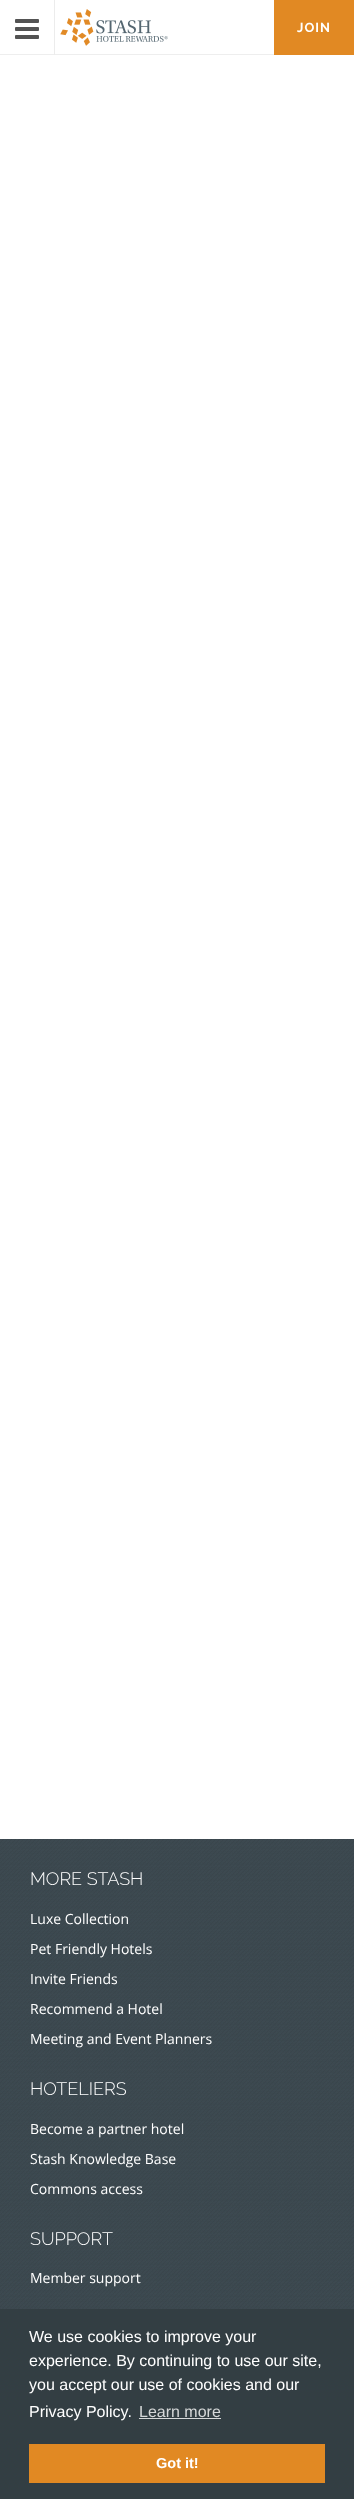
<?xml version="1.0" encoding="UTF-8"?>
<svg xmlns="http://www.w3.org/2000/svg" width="354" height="2499">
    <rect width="100%" height="100%" fill="#FFFFFF"/>
    <rect x="0" y="54" width="274" height="1" fill="#EEEEEE"/>
    <rect x="54" y="0" width="1" height="55" fill="#ECECEC"/>
    <image x="15" y="19" width="24" height="20" href="img_01.png"/>
    <image x="60" y="9" width="108" height="37" href="img_02.png"/>
    <rect x="274" y="0" width="80" height="55" fill="#E18923"/>
    <text x="297" y="32" font-family="Raleway" font-size="13" font-weight="700" letter-spacing="1" fill="#FFFFFF">JOIN</text>
    <rect x="0" y="1839" width="354" height="470" fill="#3E4B52"/>
    <image x="0" y="1839" width="354" height="470" href="img_03.png"/>
    <text x="30" y="1885" font-family="Raleway" font-size="18" font-weight="300" fill="#FFFFFF">MORE STASH</text>
    <text x="30" y="1924" font-family="Open Sans" font-size="14" fill="#FFFFFF">Luxe Collection</text>
    <text x="30" y="1954" font-family="Open Sans" font-size="14" fill="#FFFFFF">Pet Friendly Hotels</text>
    <text x="30" y="1984" font-family="Open Sans" font-size="14" fill="#FFFFFF">Invite Friends</text>
    <text x="30" y="2014" font-family="Open Sans" font-size="14" fill="#FFFFFF">Recommend a Hotel</text>
    <text x="30" y="2044" font-family="Open Sans" font-size="14" fill="#FFFFFF">Meeting and Event Planners</text>
    <text x="30" y="2095" font-family="Raleway" font-size="18" font-weight="300" fill="#FFFFFF">HOTELIERS</text>
    <text x="30" y="2134" font-family="Open Sans" font-size="14" fill="#FFFFFF">Become a partner hotel</text>
    <text x="30" y="2164" font-family="Open Sans" font-size="14" fill="#FFFFFF">Stash Knowledge Base</text>
    <text x="30" y="2194" font-family="Open Sans" font-size="14" fill="#FFFFFF">Commons access</text>
    <text x="30" y="2245" font-family="Raleway" font-size="18" font-weight="300" fill="#FFFFFF">SUPPORT</text>
    <text x="30" y="2283" font-family="Open Sans" font-size="14" fill="#FFFFFF">Member support</text>
    <rect x="0" y="2309" width="354" height="190" fill="#333E43"/>
    <text font-family="Liberation Sans" font-size="16" fill="#FFFFFF">
        <tspan x="29" y="2342">We use cookies to improve your</tspan>
        <tspan x="29" y="2366">experience. By continuing to use our site,</tspan>
        <tspan x="29" y="2390">you accept our use of cookies and our</tspan>
        <tspan x="29" y="2417">Privacy Policy.</tspan>
    </text>
    <text x="139" y="2417" font-family="Liberation Sans" font-size="16" fill="#D6D8D9">Learn more</text>
    <rect x="139" y="2418" width="82" height="1" fill="#D6D8D9"/>
    <rect x="29" y="2444" width="296" height="39" fill="#E18923"/>
    <text x="156" y="2468" font-family="Liberation Sans" font-size="14.5" font-weight="700" fill="#FFFFFF">Got it!</text>
</svg>
